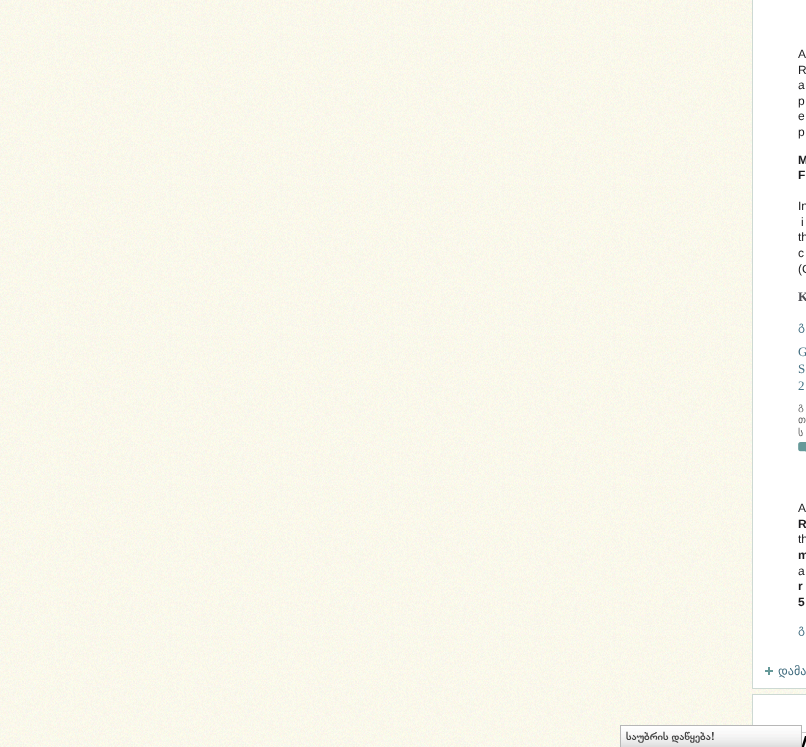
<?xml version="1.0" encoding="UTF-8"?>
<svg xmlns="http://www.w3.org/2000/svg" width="806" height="747">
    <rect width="100%" height="100%" fill="#FFFFFF"/>
    <image x="0" y="0" width="806" height="747" href="img_01.png"/>
    <rect x="752.5" y="-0.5" width="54" height="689" fill="#FFFFFF" stroke="#CDD9D3"/>
    <text font-family="Liberation Sans" font-size="12" fill="#1C1C1F">
        <tspan x="798" y="58">A</tspan>
        <tspan x="798" y="74">R</tspan>
        <tspan x="798" y="89">a</tspan>
        <tspan x="798" y="105">p</tspan>
        <tspan x="798" y="120">e</tspan>
        <tspan x="798" y="136">p</tspan>
    </text>
    <text font-family="Liberation Sans" font-size="12" font-weight="700" fill="#1C1C1F">
        <tspan x="798" y="164">M</tspan>
        <tspan x="798" y="179">F</tspan>
    </text>
    <text x="798" y="210" font-family="Liberation Sans" font-size="12" fill="#1C1C1F">In</text>
    <text x="801" y="226" font-family="Liberation Sans" font-size="12" fill="#1C1C1F">i</text>
    <text font-family="Liberation Sans" font-size="12" fill="#1C1C1F">
        <tspan x="798" y="241">th</tspan>
        <tspan x="798" y="257">c</tspan>
        <tspan x="798" y="273">(C</tspan>
    </text>
    <text x="798" y="301" font-family="Liberation Serif" font-size="13" font-weight="700" fill="#4E4E54">K</text>
    <text x="798" y="330" font-family="DejaVu Sans" font-size="12" fill="#467082">გ</text>
    <text font-family="Liberation Serif" font-size="13" fill="#467082">
        <tspan x="798" y="356">G</tspan>
        <tspan x="798" y="373">S</tspan>
        <tspan x="798" y="390">2</tspan>
    </text>
    <text font-family="DejaVu Sans" font-size="10" fill="#666666">
        <tspan x="798" y="410">გ</tspan>
        <tspan x="798" y="423">თ</tspan>
        <tspan x="798" y="436">ს</tspan>
    </text>
    <image x="798" y="442" width="8" height="10" href="img_02.png"/>
    <text x="798" y="512" font-family="Liberation Sans" font-size="12" fill="#1C1C1F">A</text>
    <text x="798" y="528" font-family="Liberation Sans" font-size="12" font-weight="700" fill="#1C1C1F">R</text>
    <text x="798" y="543" font-family="Liberation Sans" font-size="12" fill="#1C1C1F">th</text>
    <text x="798" y="559" font-family="Liberation Sans" font-size="12" font-weight="700" fill="#1C1C1F">m</text>
    <text x="798" y="575" font-family="Liberation Sans" font-size="12" fill="#1C1C1F">a</text>
    <text font-family="Liberation Sans" font-size="12" font-weight="700" fill="#1C1C1F">
        <tspan x="798" y="590">r</tspan>
        <tspan x="798" y="606">5</tspan>
    </text>
    <text x="798" y="633" font-family="DejaVu Sans" font-size="12" fill="#467082">გ</text>
    <image x="765" y="667" width="8" height="8" href="img_03.png"/>
    <text x="778" y="675" font-family="DejaVu Sans" font-size="12" fill="#467082">დამა</text>
    <rect x="753" y="695" width="53" height="37" fill="#FFFFFF"/>
    <rect x="752.5" y="694.5" width="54" height="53" fill="none" stroke="#CDD9D3"/>
    <image x="802" y="732" width="4" height="15" href="img_04.png"/>
    <image x="621" y="726" width="180" height="21" href="img_05.png"/>
    <rect x="620.5" y="725.5" width="181" height="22" fill="none" stroke="#B7B7B7"/>
    <text x="626" y="740" font-family="FreeSans" font-size="11" font-weight="600" fill="#454545">საუბრის დაწყება!</text>
</svg>
